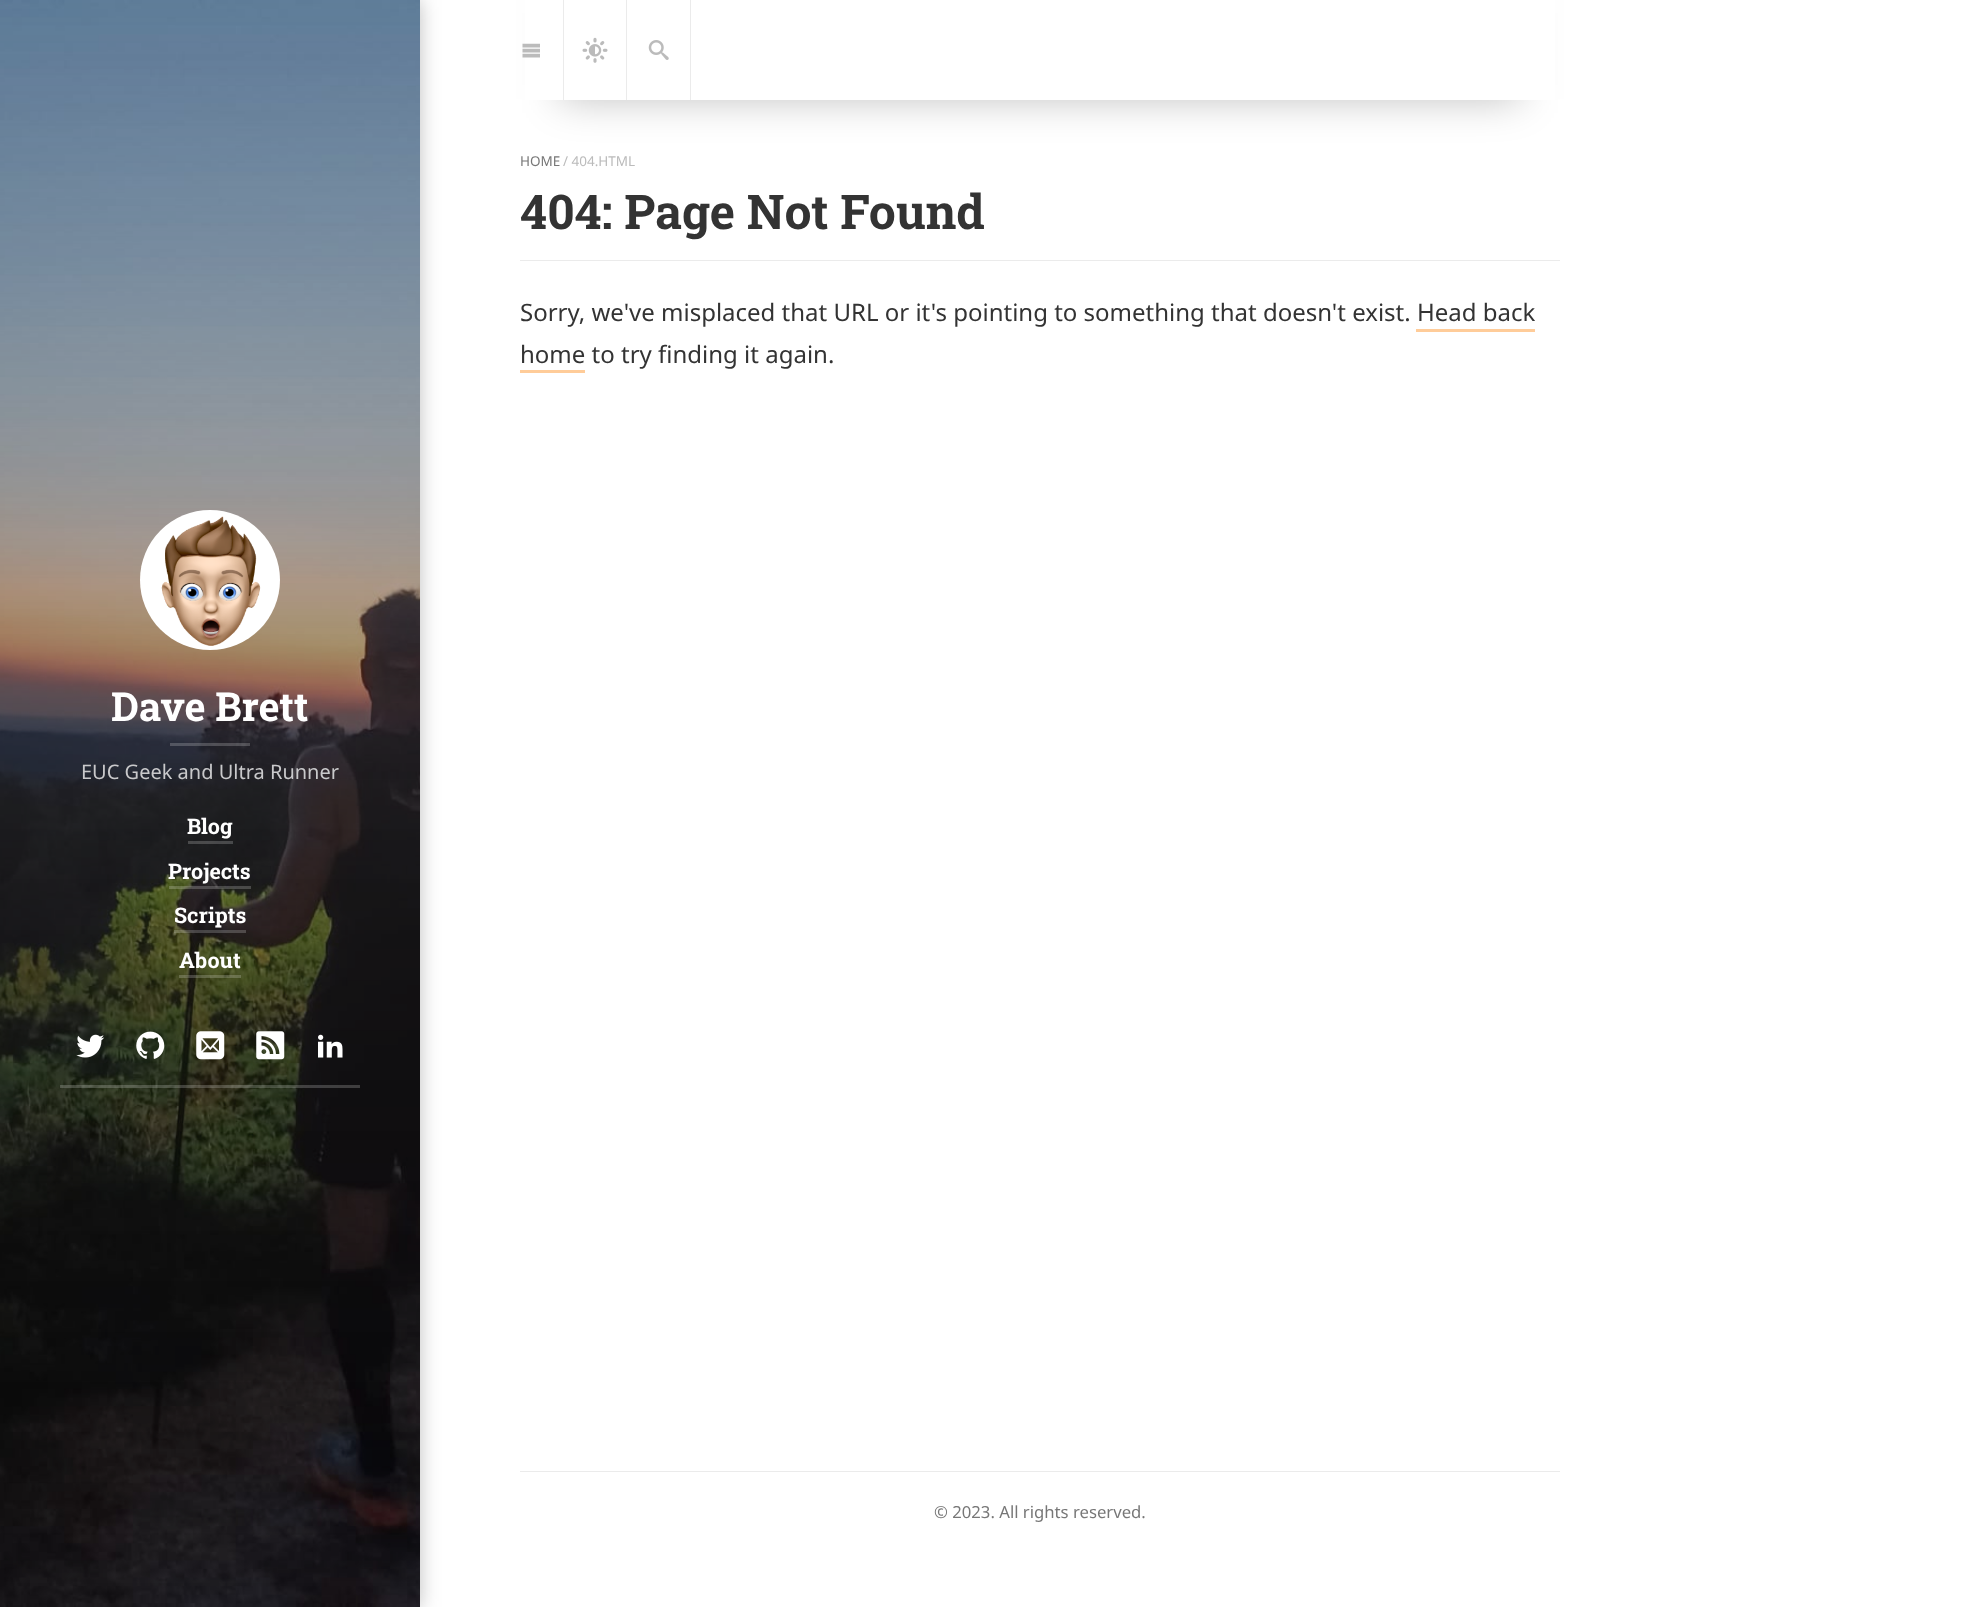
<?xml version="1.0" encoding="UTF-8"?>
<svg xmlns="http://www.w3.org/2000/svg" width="1970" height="1607">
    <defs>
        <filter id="blur1" x="-50%" y="-200%" width="200%" height="500%"><feGaussianBlur stdDeviation="20"/></filter>
        <filter id="blur2" x="-50%" y="-200%" width="200%" height="500%"><feGaussianBlur stdDeviation="10"/></filter>
    </defs>
    <rect width="100%" height="100%" fill="#FFFFFF"/>
    <rect x="560" y="-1" width="960" height="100" fill="#000000" fill-opacity="0.25" filter="url(#blur1)"/>
    <rect x="525" y="0" width="1030" height="100" fill="#FFFFFF"/>
    <image x="522" y="43" width="18" height="15" href="img_01.png"/>
    <rect x="626" y="0" width="1" height="100" fill="#EBEBEB"/>
    <rect x="563" y="0" width="1" height="100" fill="#EBEBEB"/>
    <image x="582" y="37" width="26" height="26" href="img_02.png"/>
    <rect x="690" y="0" width="1" height="100" fill="#EBEBEB"/>
    <image x="648" y="40" width="21" height="20" href="img_03.png"/>
    <rect x="-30" y="0" width="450" height="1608" fill="#000000" fill-opacity="0.25" filter="url(#blur2)"/>
    <image x="0" y="0" width="420" height="1607" href="img_04.png"/>
    <image x="140" y="510" width="140" height="140" href="img_05.png"/>
    <text x="111" y="721" font-family="Roboto Slab" font-size="40" font-weight="700" fill="#FFFFFF">Dave Brett</text>
    <rect x="170" y="743" width="80" height="3" fill="#FFFFFF" fill-opacity="0.2"/>
    <text x="81" y="779" font-family="Noto Sans" font-size="20" fill="#C9C9CB">EUC Geek and Ultra Runner</text>
    <text x="187" y="834" font-family="Roboto Slab" font-size="21.5" font-weight="700" fill="#FFFFFF">Blog</text>
    <rect x="188" y="841" width="45" height="3" fill="#FFFFFF" fill-opacity="0.2"/>
    <text x="168" y="879" font-family="Roboto Slab" font-size="21.5" font-weight="700" fill="#FFFFFF">Projects</text>
    <rect x="169" y="886" width="82" height="3" fill="#FFFFFF" fill-opacity="0.2"/>
    <text x="174" y="923" font-family="Roboto Slab" font-size="21.5" font-weight="700" fill="#FFFFFF">Scripts</text>
    <rect x="174" y="930" width="72" height="3" fill="#FFFFFF" fill-opacity="0.2"/>
    <text x="179" y="968" font-family="Roboto Slab" font-size="21.5" font-weight="700" fill="#FFFFFF">About</text>
    <rect x="179" y="975" width="62" height="3" fill="#FFFFFF" fill-opacity="0.2"/>
    <rect x="60" y="1085" width="60" height="3" fill="#FFFFFF" fill-opacity="0.2"/>
    <image x="76" y="1034" width="29" height="24" href="img_06.png"/>
    <rect x="120" y="1085" width="60" height="3" fill="#FFFFFF" fill-opacity="0.2"/>
    <image x="136" y="1031" width="29" height="28" href="img_07.png"/>
    <rect x="180" y="1085" width="60" height="3" fill="#FFFFFF" fill-opacity="0.2"/>
    <image x="196" y="1031" width="29" height="29" href="img_08.png"/>
    <rect x="240" y="1085" width="60" height="3" fill="#FFFFFF" fill-opacity="0.2"/>
    <image x="256" y="1031" width="29" height="29" href="img_09.png"/>
    <rect x="300" y="1085" width="60" height="3" fill="#FFFFFF" fill-opacity="0.2"/>
    <image x="318" y="1034" width="25" height="24" href="img_10.png"/>
    <text x="520" y="166" font-family="Noto Sans" font-size="13.5" fill="#777777">HOME</text>
    <text x="563" y="166" font-family="Noto Sans" font-size="13.5" fill="#BBBBBB">/ 404.HTML</text>
    <text x="520" y="229" font-family="Roboto Slab" font-size="48" font-weight="700" fill="#333333">404: Page Not Found</text>
    <rect x="520" y="260" width="1040" height="1" fill="#EBEBEB"/>
    <text font-family="Noto Sans" font-size="24" fill="#333333">
        <tspan x="520" y="321">Sorry, we've misplaced that URL or it's pointing to something that doesn't exist. Head back</tspan>
        <tspan x="520" y="363">home to try finding it again.</tspan>
    </text>
    <rect x="1416" y="329" width="119" height="3" fill="#FFCC99"/>
    <rect x="520" y="370" width="65" height="3" fill="#FFCC99"/>
    <rect x="520" y="1471" width="1040" height="1" fill="#EBEBEB"/>
    <text x="934" y="1518" font-family="Noto Sans" font-size="16.7" fill="#777777">© 2023. All rights reserved.</text>
</svg>
